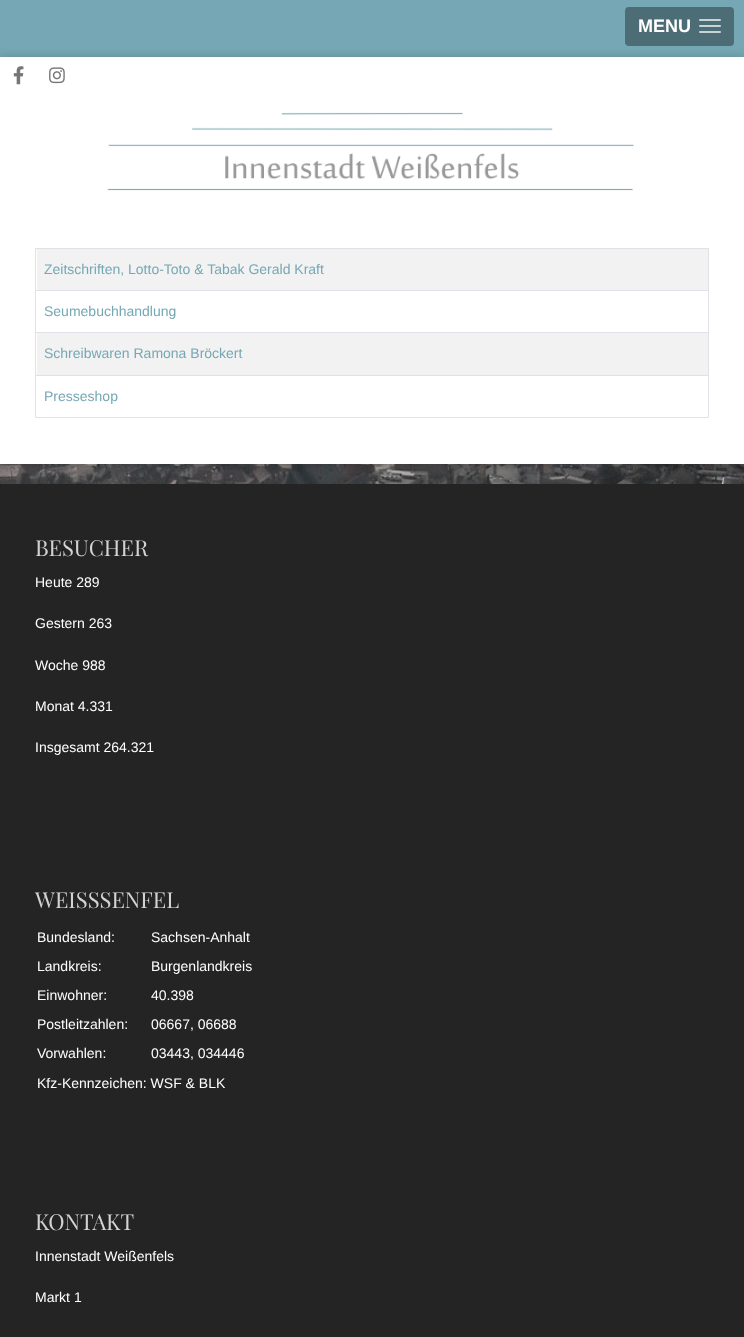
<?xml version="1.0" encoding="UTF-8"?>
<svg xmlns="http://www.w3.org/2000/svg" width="744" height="1337">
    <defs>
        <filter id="blur1" x="-50%" y="-200%" width="200%" height="500%"><feGaussianBlur stdDeviation="5"/></filter>
    </defs>
    <rect width="100%" height="100%" fill="#FFFFFF"/>
    <rect x="0" y="0" width="744" height="57" fill="#75A8B4"/>
    <rect x="625" y="7" width="109" height="39" rx="4" fill="#4C6D75"/>
    <text x="638" y="32" font-family="Liberation Sans" font-size="18" font-weight="700" fill="#FFFFFF">MENU</text>
    <rect x="699" y="19" width="22" height="2" rx="1" fill="#C9D3D6"/>
    <rect x="699" y="25" width="22" height="2" rx="1" fill="#C9D3D6"/>
    <rect x="699" y="31" width="22" height="2" rx="1" fill="#C9D3D6"/>
    <image x="0" y="464" width="744" height="20" href="img_04.png"/>
    <rect x="0" y="57" width="744" height="407" fill="#000000" fill-opacity="0.2" filter="url(#blur1)"/>
    <rect x="0" y="57" width="744" height="407" fill="#FFFFFF"/>
    <image x="13" y="66" width="11" height="19" href="img_01.png"/>
    <image x="49" y="67" width="16" height="17" href="img_02.png"/>
    <image x="107" y="112" width="527" height="79" href="img_03.png"/>
    <rect x="35" y="248" width="674" height="1" fill="#DFE3E7"/>
    <rect x="37" y="249" width="671" height="41" fill="#F2F2F2"/>
    <text x="44" y="274" font-family="Liberation Sans" font-size="14" fill="#75A8B4">Zeitschriften, Lotto-Toto &amp; Tabak Gerald Kraft</text>
    <rect x="35" y="290" width="674" height="1" fill="#DFE3E7"/>
    <text x="44" y="316" font-family="Liberation Sans" font-size="14" fill="#75A8B4">Seumebuchhandlung</text>
    <rect x="35" y="332" width="674" height="1" fill="#DFE3E7"/>
    <rect x="37" y="333" width="671" height="42" fill="#F2F2F2"/>
    <text x="44" y="358" font-family="Liberation Sans" font-size="14" fill="#75A8B4">Schreibwaren Ramona Bröckert</text>
    <rect x="35" y="375" width="674" height="1" fill="#DFE3E7"/>
    <rect x="35" y="417" width="674" height="1" fill="#DFE3E7"/>
    <rect x="708" y="248" width="1" height="170" fill="#DFE3E7"/>
    <rect x="35" y="248" width="1" height="170" fill="#DFE3E7"/>
    <text x="44" y="401" font-family="Liberation Sans" font-size="14" fill="#75A8B4">Presseshop</text>
    <rect x="0" y="484" width="744" height="853" fill="#242424"/>
    <text x="35" y="556" font-family="Playfair Display" font-size="22" fill="#D3D3D3">BESUCHER</text>
    <text x="35" y="587" font-family="Liberation Sans" font-size="14" fill="#FFFFFF">Heute 289</text>
    <text x="35" y="628" font-family="Liberation Sans" font-size="14" fill="#FFFFFF">Gestern 263</text>
    <text x="35" y="670" font-family="Liberation Sans" font-size="14" fill="#FFFFFF">Woche 988</text>
    <text x="35" y="711" font-family="Liberation Sans" font-size="14" fill="#FFFFFF">Monat 4.331</text>
    <text x="35" y="752" font-family="Liberation Sans" font-size="14" fill="#FFFFFF">Insgesamt 264.321</text>
    <text x="35" y="908" font-family="Playfair Display" font-size="22" fill="#D3D3D3">WEISSSENFEL</text>
    <text x="37" y="942" font-family="Liberation Sans" font-size="14" fill="#FFFFFF">Bundesland:</text>
    <text x="151" y="942" font-family="Liberation Sans" font-size="14" fill="#FFFFFF">Sachsen-Anhalt</text>
    <text x="37" y="971" font-family="Liberation Sans" font-size="14" fill="#FFFFFF">Landkreis:</text>
    <text x="151" y="971" font-family="Liberation Sans" font-size="14" fill="#FFFFFF">Burgenlandkreis</text>
    <text x="37" y="1000" font-family="Liberation Sans" font-size="14" fill="#FFFFFF">Einwohner:</text>
    <text x="151" y="1000" font-family="Liberation Sans" font-size="14" fill="#FFFFFF">40.398</text>
    <text x="37" y="1029" font-family="Liberation Sans" font-size="14" fill="#FFFFFF">Postleitzahlen:</text>
    <text x="151" y="1029" font-family="Liberation Sans" font-size="14" fill="#FFFFFF">06667, 06688</text>
    <text x="37" y="1058" font-family="Liberation Sans" font-size="14" fill="#FFFFFF">Vorwahlen:</text>
    <text x="151" y="1058" font-family="Liberation Sans" font-size="14" fill="#FFFFFF">03443, 034446</text>
    <text x="37" y="1088" font-family="Liberation Sans" font-size="14" fill="#FFFFFF">Kfz-Kennzeichen: WSF &amp; BLK</text>
    <text x="35" y="1230" font-family="Playfair Display" font-size="22" fill="#D3D3D3">KONTAKT</text>
    <text x="35" y="1261" font-family="Liberation Sans" font-size="14" fill="#FFFFFF">Innenstadt Weißenfels</text>
    <text x="35" y="1302" font-family="Liberation Sans" font-size="14" fill="#FFFFFF">Markt 1</text>
</svg>
